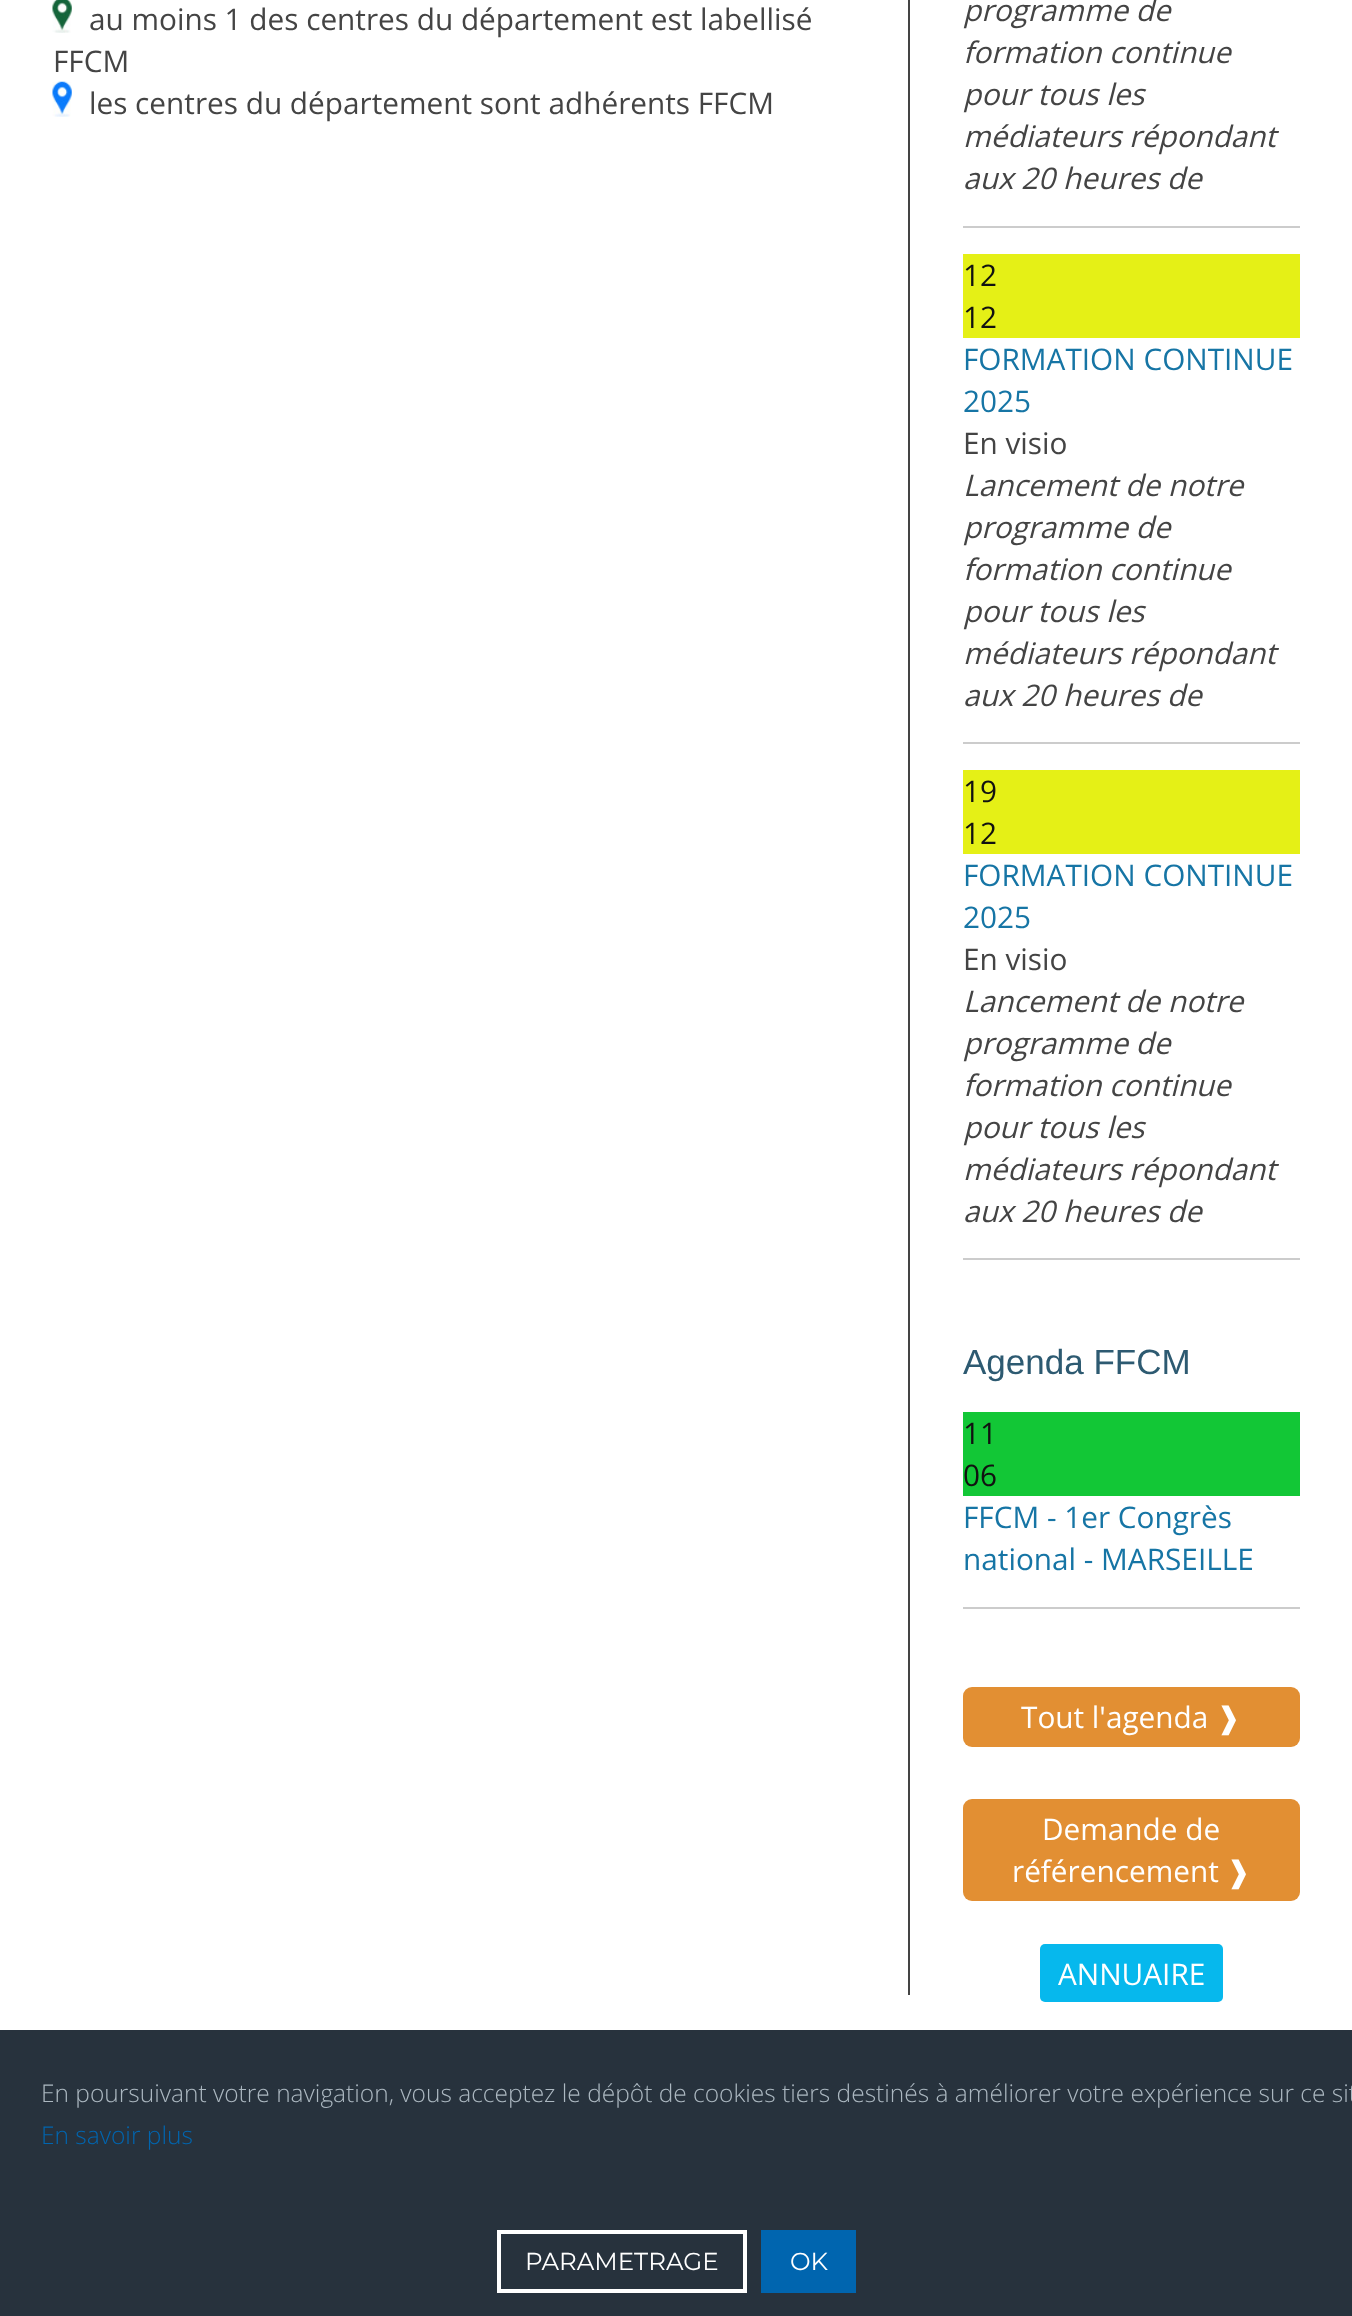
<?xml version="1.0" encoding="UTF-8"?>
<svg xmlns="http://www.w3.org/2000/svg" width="1352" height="2316">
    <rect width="100%" height="100%" fill="#FFFFFF"/>
    <rect x="908" y="0" width="2" height="1995" fill="#444444"/>
    <image x="52" y="0" width="20" height="33" href="img_01.png"/>
    <text x="89" y="30" font-family="Open Sans" font-size="29.75" fill="#444444">au moins 1 des centres du département est labellisé</text>
    <text x="53" y="72" font-family="Open Sans" font-size="29.75" fill="#444444">FFCM</text>
    <image x="52" y="81" width="20" height="36" href="img_02.png"/>
    <text x="89" y="114" font-family="Open Sans" font-size="29.75" fill="#444444">les centres du département sont adhérents FFCM</text>
    <text font-family="Open Sans" font-size="29.75" font-style="italic" fill="#444444">
        <tspan x="963" y="21">programme de</tspan>
        <tspan x="963" y="63">formation continue</tspan>
        <tspan x="963" y="105">pour tous les</tspan>
        <tspan x="963" y="147">médiateurs répondant</tspan>
        <tspan x="963" y="189">aux 20 heures de</tspan>
    </text>
    <rect x="963" y="226" width="337" height="2" fill="#CCCCCC"/>
    <rect x="963" y="254" width="337" height="84" fill="#E5F016"/>
    <text font-family="Open Sans" font-size="29.75" fill="#111111">
        <tspan x="963" y="286">12</tspan>
        <tspan x="963" y="328">12</tspan>
    </text>
    <text font-family="Open Sans" font-size="29.75" fill="#1675A5">
        <tspan x="963" y="370">FORMATION CONTINUE</tspan>
        <tspan x="963" y="412">2025</tspan>
    </text>
    <text x="963" y="454" font-family="Open Sans" font-size="29.75" fill="#444444">En visio</text>
    <text font-family="Open Sans" font-size="29.75" font-style="italic" fill="#444444">
        <tspan x="963" y="496">Lancement de notre</tspan>
        <tspan x="963" y="538">programme de</tspan>
        <tspan x="963" y="580">formation continue</tspan>
        <tspan x="963" y="622">pour tous les</tspan>
        <tspan x="963" y="664">médiateurs répondant</tspan>
        <tspan x="963" y="706">aux 20 heures de</tspan>
    </text>
    <rect x="963" y="742" width="337" height="2" fill="#CCCCCC"/>
    <rect x="963" y="770" width="337" height="84" fill="#E5F016"/>
    <text font-family="Open Sans" font-size="29.75" fill="#111111">
        <tspan x="963" y="802">19</tspan>
        <tspan x="963" y="844">12</tspan>
    </text>
    <text font-family="Open Sans" font-size="29.75" fill="#1675A5">
        <tspan x="963" y="886">FORMATION CONTINUE</tspan>
        <tspan x="963" y="928">2025</tspan>
    </text>
    <text x="963" y="970" font-family="Open Sans" font-size="29.75" fill="#444444">En visio</text>
    <text font-family="Open Sans" font-size="29.75" font-style="italic" fill="#444444">
        <tspan x="963" y="1012">Lancement de notre</tspan>
        <tspan x="963" y="1054">programme de</tspan>
        <tspan x="963" y="1096">formation continue</tspan>
        <tspan x="963" y="1138">pour tous les</tspan>
        <tspan x="963" y="1180">médiateurs répondant</tspan>
        <tspan x="963" y="1222">aux 20 heures de</tspan>
    </text>
    <rect x="963" y="1258" width="337" height="2" fill="#CCCCCC"/>
    <text x="963" y="1374" font-family="Arimo" font-size="35" fill="#2D5A71">Agenda FFCM</text>
    <rect x="963" y="1412" width="337" height="84" fill="#12C736"/>
    <text font-family="Open Sans" font-size="29.75" fill="#111111">
        <tspan x="963" y="1444">11</tspan>
        <tspan x="963" y="1486">06</tspan>
    </text>
    <text font-family="Open Sans" font-size="29.75" fill="#1675A5">
        <tspan x="963" y="1528">FFCM - 1er Congrès</tspan>
        <tspan x="963" y="1570">national - MARSEILLE</tspan>
    </text>
    <rect x="963" y="1607" width="337" height="2" fill="#CCCCCC"/>
    <rect x="963" y="1687" width="337" height="60" rx="9" fill="#E28F33"/>
    <text x="1021" y="1728" font-family="Open Sans" font-size="29.75" fill="#FFFFFF">Tout l'agenda</text>
    <text x="1216" y="1728" font-family="DejaVu Sans" font-size="29.75" fill="#FFFFFF">❱</text>
    <rect x="963" y="1799" width="337" height="102" rx="9" fill="#E28F33"/>
    <text x="1042" y="1840" font-family="Open Sans" font-size="29.75" fill="#FFFFFF">Demande de</text>
    <text x="1012" y="1882" font-family="Open Sans" font-size="29.75" fill="#FFFFFF">référencement</text>
    <text x="1226" y="1882" font-family="DejaVu Sans" font-size="29.75" fill="#FFFFFF">❱</text>
    <rect x="1040" y="1944" width="183" height="58" rx="5" fill="#06B8ED"/>
    <text x="1058" y="1985" font-family="Open Sans" font-size="29.75" fill="#FFFFFF">ANNUAIRE</text>
    <rect x="0" y="2030" width="1352" height="286" fill="#27323D"/>
    <text x="41" y="2102" font-family="Open Sans" font-size="24.5" font-weight="300" fill="#ACB8C1">En poursuivant votre navigation, vous acceptez le dépôt de cookies tiers destinés à améliorer votre expérience sur ce sit</text>
    <text x="41" y="2144" font-family="Open Sans" font-size="24.5" font-weight="300" fill="#0065AF">En savoir plus</text>
    <rect x="499" y="2232" width="246" height="59" fill="none" stroke="#FFFFFF" stroke-width="4"/>
    <text x="525" y="2270" font-family="Montserrat" font-size="24.5" fill="#FFFFFF">PARAMETRAGE</text>
    <rect x="761" y="2230" width="95" height="63" fill="#0065AF"/>
    <text x="790" y="2270" font-family="Montserrat" font-size="24.5" fill="#FFFFFF">OK</text>
</svg>
